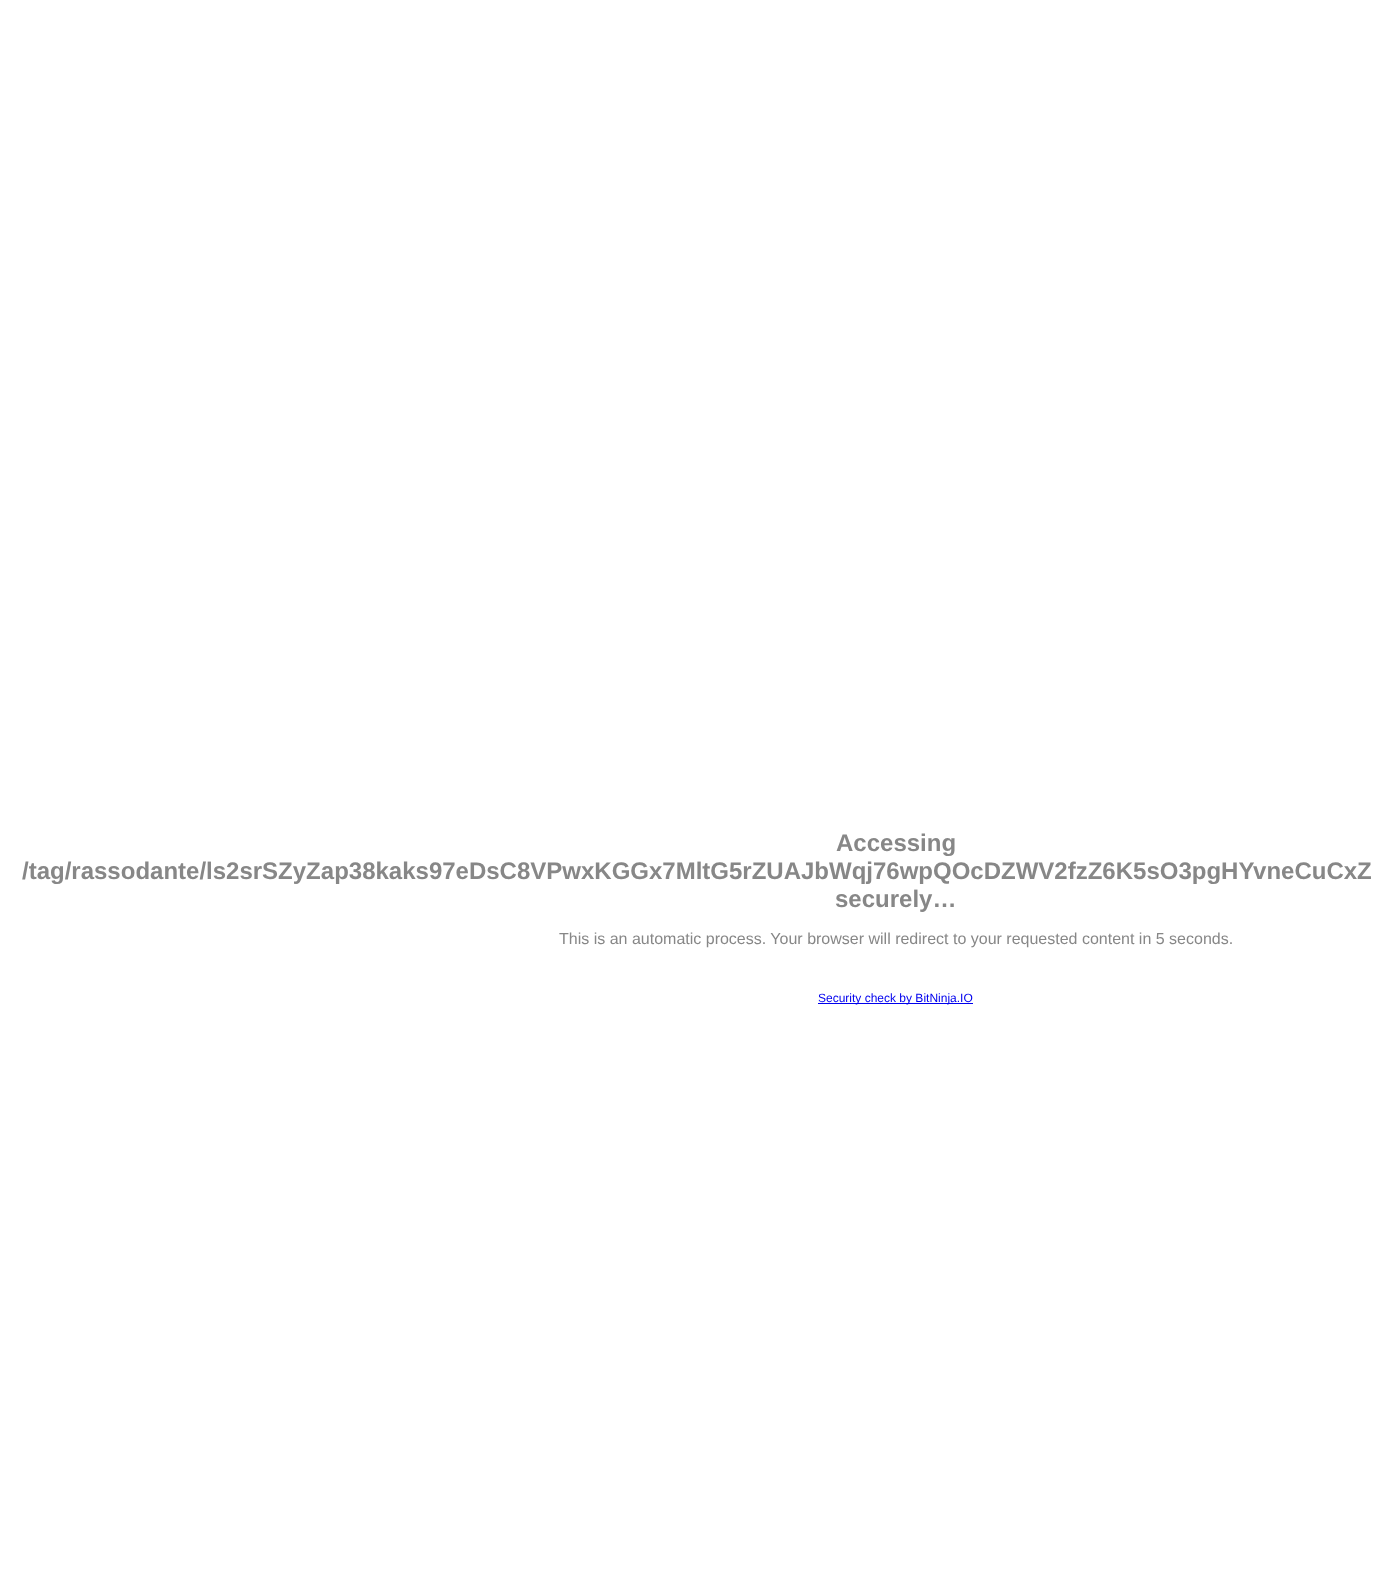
<?xml version="1.0" encoding="UTF-8"?>
<svg xmlns="http://www.w3.org/2000/svg" width="1379" height="1575">
    <rect width="100%" height="100%" fill="#FFFFFF"/>
    <text x="836" y="851" font-family="Liberation Sans" font-size="24" font-weight="700" fill="#878787">Accessing</text>
    <text x="22" y="879" font-family="Liberation Sans" font-size="24" font-weight="700" fill="#878787">/tag/rassodante/ls2srSZyZap38kaks97eDsC8VPwxKGGx7MltG5rZUAJbWqj76wpQOcDZWV2fzZ6K5sO3pgHYvneCuCxZ</text>
    <text x="835" y="907" font-family="Liberation Sans" font-size="24" font-weight="700" fill="#878787">securely…</text>
    <text x="559" y="944" font-family="Liberation Sans" font-size="16" fill="#878787">This is an automatic process. Your browser will redirect to your requested content in 5 seconds.</text>
    <rect x="818" y="1003" width="155" height="1" fill="#0000EE"/>
    <text x="818" y="1002" font-family="Liberation Sans" font-size="12" fill="#0000EE">Security check by BitNinja.IO</text>
</svg>
